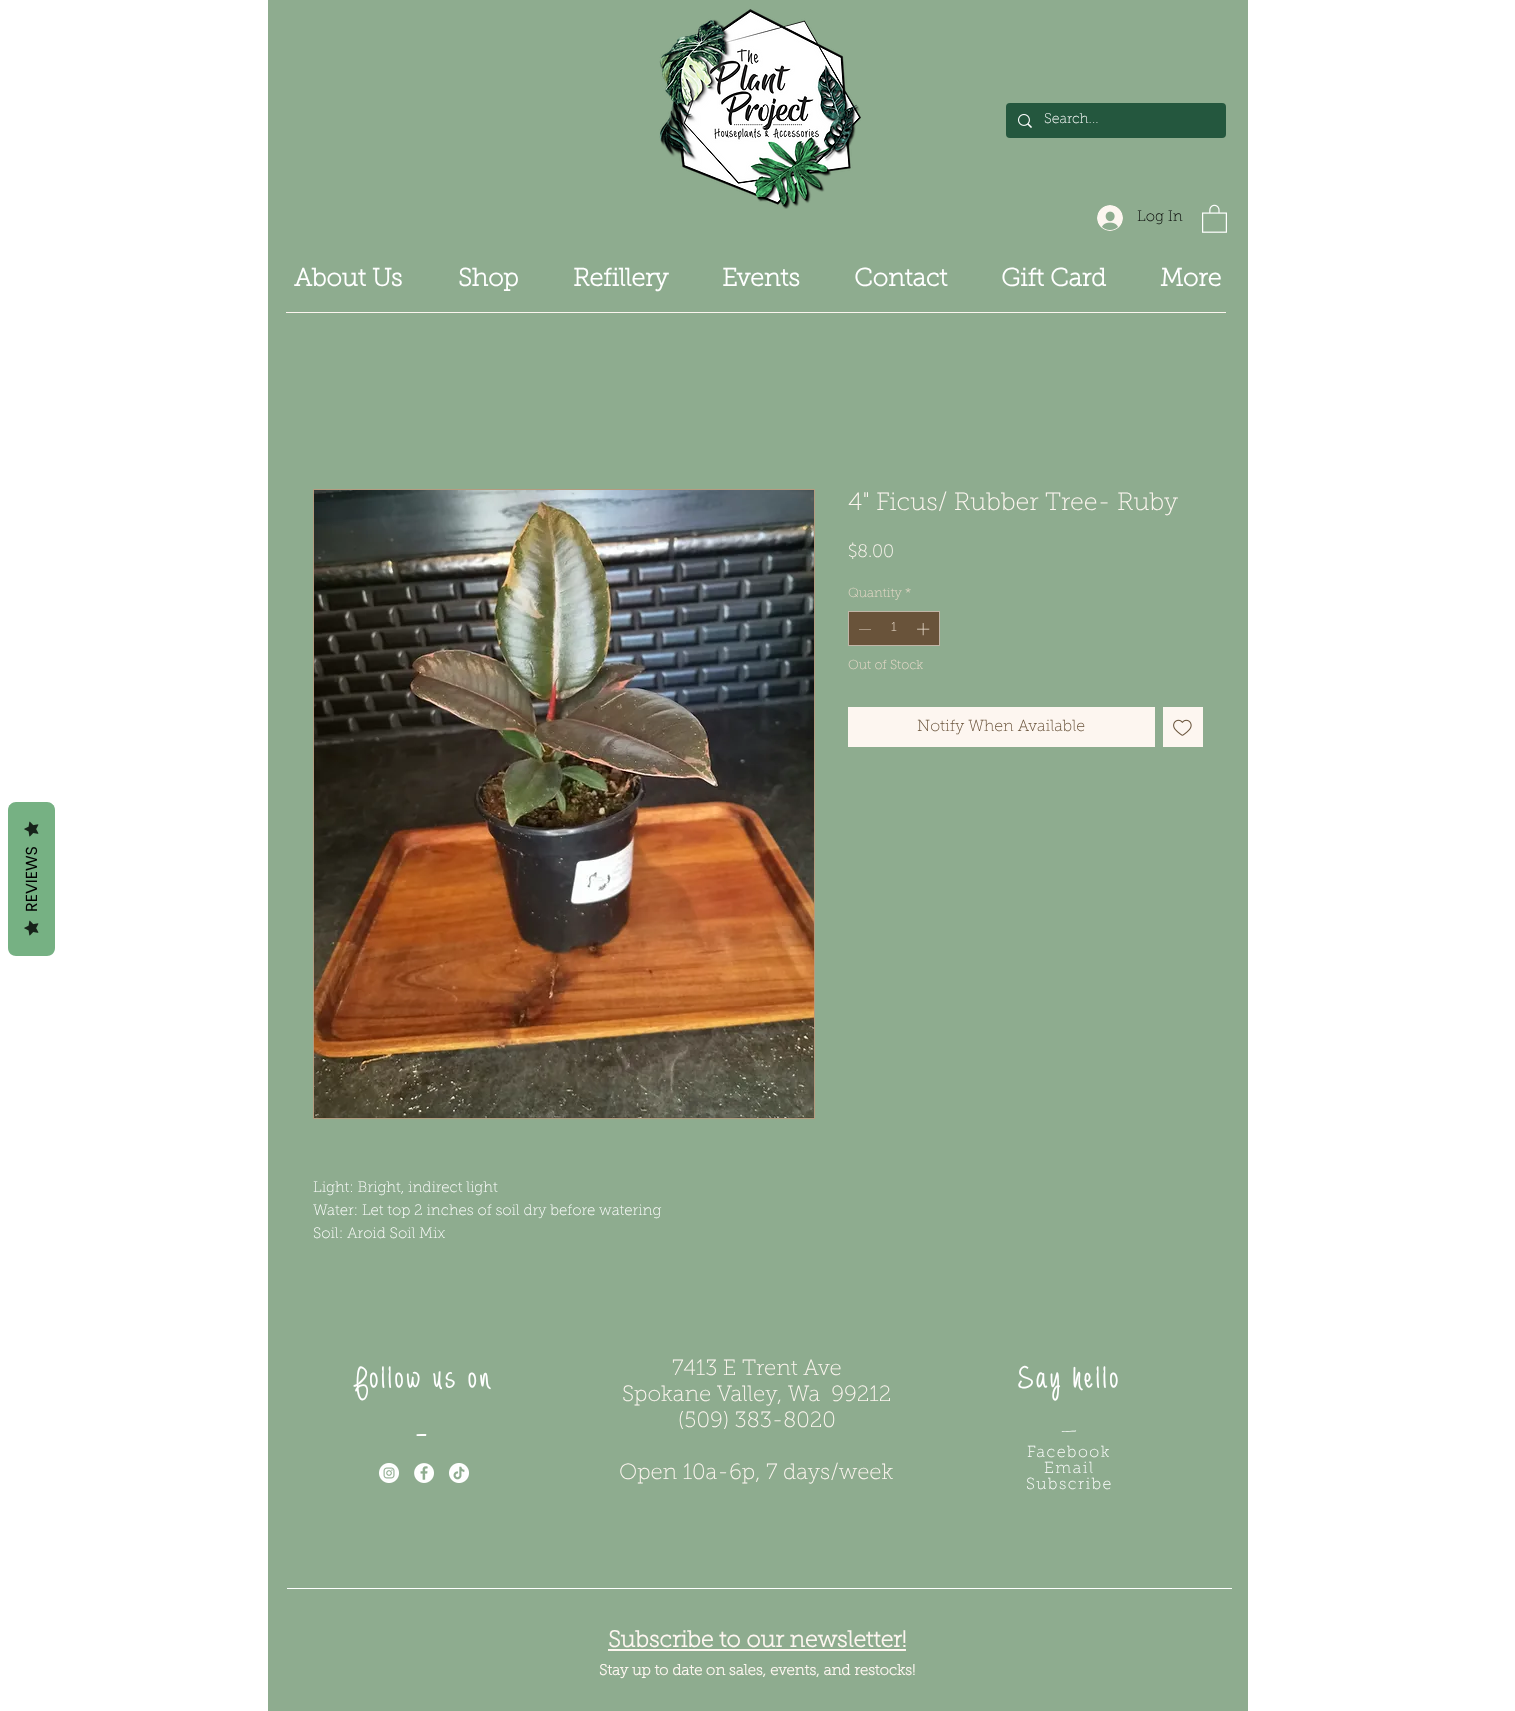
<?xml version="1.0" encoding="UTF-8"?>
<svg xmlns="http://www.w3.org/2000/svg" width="1515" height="1711">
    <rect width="100%" height="100%" fill="#FFFFFF"/>
    <path d="M 8 948 V 810 C 8 805 12 802 16 802 H 47 C 51 802 55 805 55 810 V 948 C 55 953 51 956 47 956 H 16 C 12 956 8 953 8 948 Z" fill="#76B183"/>
    <image x="24" y="821" width="15" height="16" href="img_01.png"/>
    <text x="37" y="912" transform="rotate(-90 37 912)" font-family="Poppins" font-size="16" fill="#000000">REVIEWS</text>
    <image x="24" y="920" width="15" height="16" href="img_01.png"/>
    <rect x="268" y="0" width="980" height="1711" fill="#8EAC8F"/>
    <image x="659" y="9" width="202" height="200" href="img_02.png"/>
    <rect x="1006" y="103" width="220" height="35" rx="4" fill="#24573E"/>
    <image x="1018" y="114" width="14" height="14" href="img_03.png"/>
    <text x="1044" y="123" font-family="'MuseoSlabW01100'" font-size="14" font-weight="100" fill="#FFFFFF">Search...</text>
    <image x="1097" y="205" width="26" height="26" href="img_04.png"/>
    <text x="1137" y="221" font-family="'MuseoSlabW01100'" font-size="15" font-weight="100" fill="#000000">Log In</text>
    <image x="1202" y="204" width="25" height="29" href="img_05.png"/>
    <text x="294" y="286" font-family="'MuseoSlabW01100'" font-size="25" font-weight="700" fill="#FFFFFF">About Us</text>
    <text x="458" y="286" font-family="'MuseoSlabW01100'" font-size="25" font-weight="700" fill="#FFFFFF">Shop</text>
    <text x="573" y="286" font-family="'MuseoSlabW01100'" font-size="25" font-weight="700" fill="#FFFFFF">Refillery</text>
    <text x="722" y="286" font-family="'MuseoSlabW01100'" font-size="25" font-weight="700" fill="#FFFFFF">Events</text>
    <text x="854" y="286" font-family="'MuseoSlabW01100'" font-size="25" font-weight="700" fill="#FFFFFF">Contact</text>
    <text x="1001" y="286" font-family="'MuseoSlabW01100'" font-size="25" font-weight="700" fill="#FFFFFF">Gift Card</text>
    <text x="1160" y="286" font-family="'MuseoSlabW01100'" font-size="25" font-weight="700" fill="#FFFFFF">More</text>
    <rect x="286" y="312" width="940" height="1" fill="#FDF6F0"/>
    <text x="848" y="510" font-family="'MuseoSlabW01100'" font-size="25" font-weight="100" fill="#FDF6F0">4" Ficus/ Rubber Tree- Ruby</text>
    <text x="848" y="557" font-family="'MuseoSlabW01100'" font-size="18" font-weight="100" fill="#FDF6F0">$8.00</text>
    <text x="848" y="597" font-family="'MuseoSlabW01100'" font-size="13" font-weight="100" fill="#E9DBCB">Quantity</text>
    <text x="905" y="597" font-family="'MuseoSlabW01100'" font-size="13" font-weight="100" fill="#E9DBCB">*</text>
    <rect x="848.5" y="611.5" width="91" height="34" fill="#69533A" stroke="#C2B5A7"/>
    <path d="M 871 629 V 629.5 H 859 V 629 Z" fill="#E9DBCB" fill-rule="evenodd"/>
    <text x="891" y="631" font-family="'MuseoSlabW01100'" font-size="13" font-weight="100" fill="#E9DBCB">1</text>
    <image x="917" y="623" width="13" height="13" href="img_06.png"/>
    <text x="848" y="669" font-family="'MuseoSlabW01100'" font-size="13" font-weight="100" fill="#E9DBCB">Out of Stock</text>
    <rect x="848" y="707" width="307" height="40" fill="#FDF6F0"/>
    <text x="917" y="731" font-family="'MuseoSlabW01100'" font-size="16" font-weight="100" fill="#69533A">Notify When Available</text>
    <rect x="1163" y="707" width="40" height="40" fill="#FDF6F0"/>
    <image x="1173" y="719" width="19" height="17" href="img_07.png"/>
    <rect x="313.5" y="489.5" width="501" height="629" fill="none" stroke="#B49B7F"/>
    <image x="314" y="490" width="500" height="628" href="img_08.png"/>
    <text font-family="'MuseoSlabW01100'" font-size="15" font-weight="100" fill="#FFFFFF">
        <tspan x="313" y="1192">Light: Bright, indirect light</tspan>
        <tspan x="313" y="1215">Water: Let top 2 inches of soil dry before watering</tspan>
        <tspan x="313" y="1238">Soil: Aroid Soil Mix</tspan>
    </text>
    <text x="353" y="1388" font-family="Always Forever" font-size="41" font-weight="700" letter-spacing="4.1" fill="#FFFFFF">Follow us on</text>
    <text x="416" y="1436" font-family="Always Forever" font-size="41" font-weight="700" letter-spacing="4.1" fill="#FFFFFF">_</text>
    <text x="672" y="1375" font-family="'MuseoSlabW01100'" font-size="22" font-weight="100" fill="#FDF6F0">7413 E Trent Ave</text>
    <text x="622" y="1401" font-family="'MuseoSlabW01100'" font-size="22" font-weight="100" fill="#FDF6F0" xml:space="preserve">Spokane Valley, Wa  99212</text>
    <text x="678" y="1427" font-family="'MuseoSlabW01100'" font-size="22" font-weight="100" fill="#FDF6F0">(509) 383-8020</text>
    <text x="619" y="1479" font-family="'MuseoSlabW01100'" font-size="22" font-weight="100" fill="#FDF6F0">Open 10a-6p, 7 days/week</text>
    <text x="1018" y="1388" font-family="Always Forever" font-size="41" font-weight="700" letter-spacing="4.1" fill="#FFFFFF">Say hello</text>
    <text x="1061" y="1435" font-family="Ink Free" font-size="16" fill="#FFFFFF">—</text>
    <text x="1027" y="1457" font-family="'MuseoSlabW01100'" font-size="16" font-weight="100" letter-spacing="1.5" fill="#FFFFFF">Facebook</text>
    <text x="1044" y="1473" font-family="'MuseoSlabW01100'" font-size="16" font-weight="100" letter-spacing="1.5" fill="#FFFFFF">Email</text>
    <text x="1026" y="1489" font-family="'MuseoSlabW01100'" font-size="16" font-weight="100" letter-spacing="1.5" fill="#FFFFFF">Subscribe</text>
    <image x="379" y="1463" width="20" height="20" href="img_09.png"/>
    <image x="414" y="1463" width="20" height="20" href="img_10.png"/>
    <image x="449" y="1463" width="20" height="20" href="img_11.png"/>
    <rect x="287" y="1588" width="945" height="1" fill="#FFFFFF"/>
    <text x="608" y="1647" font-family="'MuseoSlabW01100'" font-size="23" font-weight="700" fill="#FDF6F0">Subscribe to our newsletter!</text>
    <rect x="608" y="1649" width="298" height="2" fill="#FDF6F0"/>
    <text x="599" y="1675" font-family="'MuseoSlabW01100'" font-size="15" font-weight="700" fill="#FDF6F0">Stay up to date on sales, events, and restocks!</text>
</svg>
